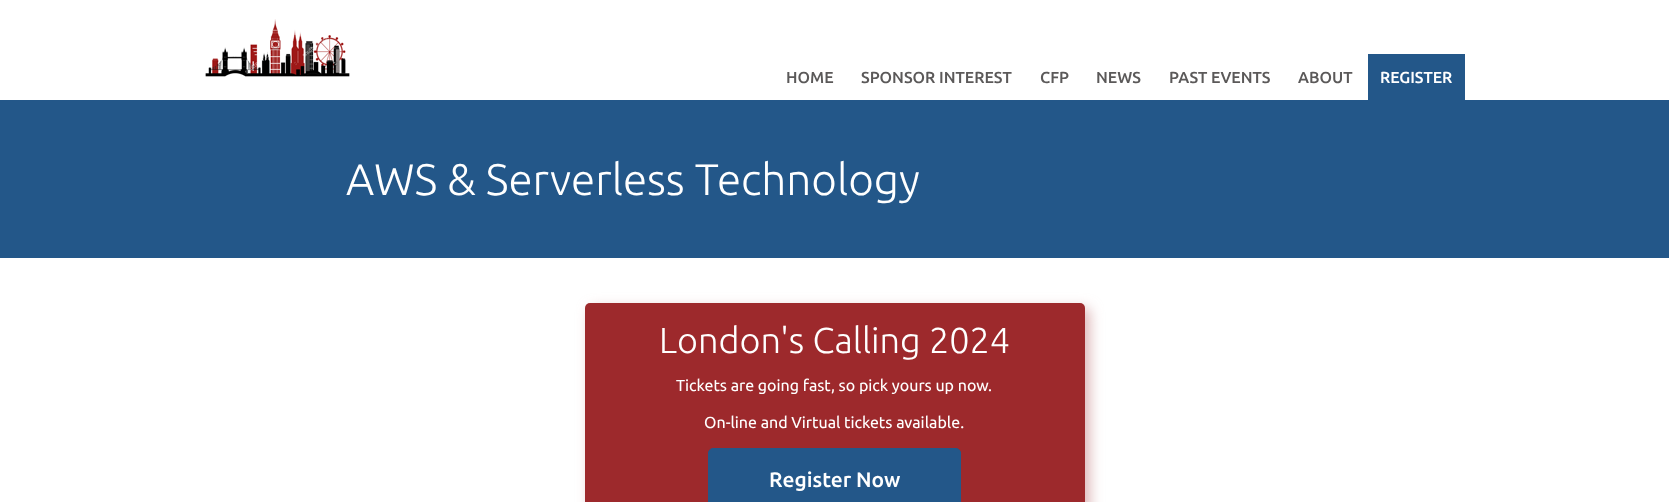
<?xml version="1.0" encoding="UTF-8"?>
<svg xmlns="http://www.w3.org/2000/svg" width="1669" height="502">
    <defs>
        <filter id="blur1" x="-50%" y="-200%" width="200%" height="500%"><feGaussianBlur stdDeviation="6.5"/></filter>
    </defs>
    <rect width="100%" height="100%" fill="#FFFFFF"/>
    <image x="205" y="19" width="145" height="58" href="img_01.png"/>
    <text x="786" y="83" font-family="Ubuntu" font-size="16" font-weight="500" fill="#5B5959">HOME</text>
    <text x="861" y="83" font-family="Ubuntu" font-size="16" font-weight="500" fill="#5B5959">SPONSOR INTEREST</text>
    <text x="1040" y="83" font-family="Ubuntu" font-size="16" font-weight="500" fill="#5B5959">CFP</text>
    <text x="1096" y="83" font-family="Ubuntu" font-size="16" font-weight="500" fill="#5B5959">NEWS</text>
    <text x="1169" y="83" font-family="Ubuntu" font-size="16" font-weight="500" fill="#5B5959">PAST EVENTS</text>
    <text x="1298" y="83" font-family="Ubuntu" font-size="16" font-weight="500" fill="#5B5959">ABOUT</text>
    <rect x="1368" y="54" width="97" height="46" fill="#235789"/>
    <text x="1380" y="83" font-family="Ubuntu" font-size="16" font-weight="500" fill="#FFFFFF">REGISTER</text>
    <rect x="0" y="100" width="1669" height="158" fill="#235789"/>
    <text x="346" y="195" font-family="Ubuntu" font-size="44" font-weight="300" fill="#FFFFFF">AWS &amp; Serverless Technology</text>
    <rect x="590" y="308" width="500" height="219" rx="5" fill="#DEB8B9" filter="url(#blur1)"/>
    <rect x="585" y="303" width="500" height="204" rx="5" fill="#9D292C"/>
    <text x="659" y="353" font-family="Ubuntu" font-size="36" font-weight="300" fill="#FFFFFF">London's Calling 2024</text>
    <text x="676" y="391" font-family="Ubuntu" font-size="16" fill="#FFFFFF">Tickets are going fast, so pick yours up now.</text>
    <text x="704" y="428" font-family="Ubuntu" font-size="16" fill="#FFFFFF">On-line and Virtual tickets available.</text>
    <rect x="708.5" y="448.5" width="252" height="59" rx="4.5" fill="#235789" stroke="#235789"/>
    <text x="769" y="487" font-family="Ubuntu" font-size="21" font-weight="500" fill="#FFFFFF">Register Now</text>
</svg>
